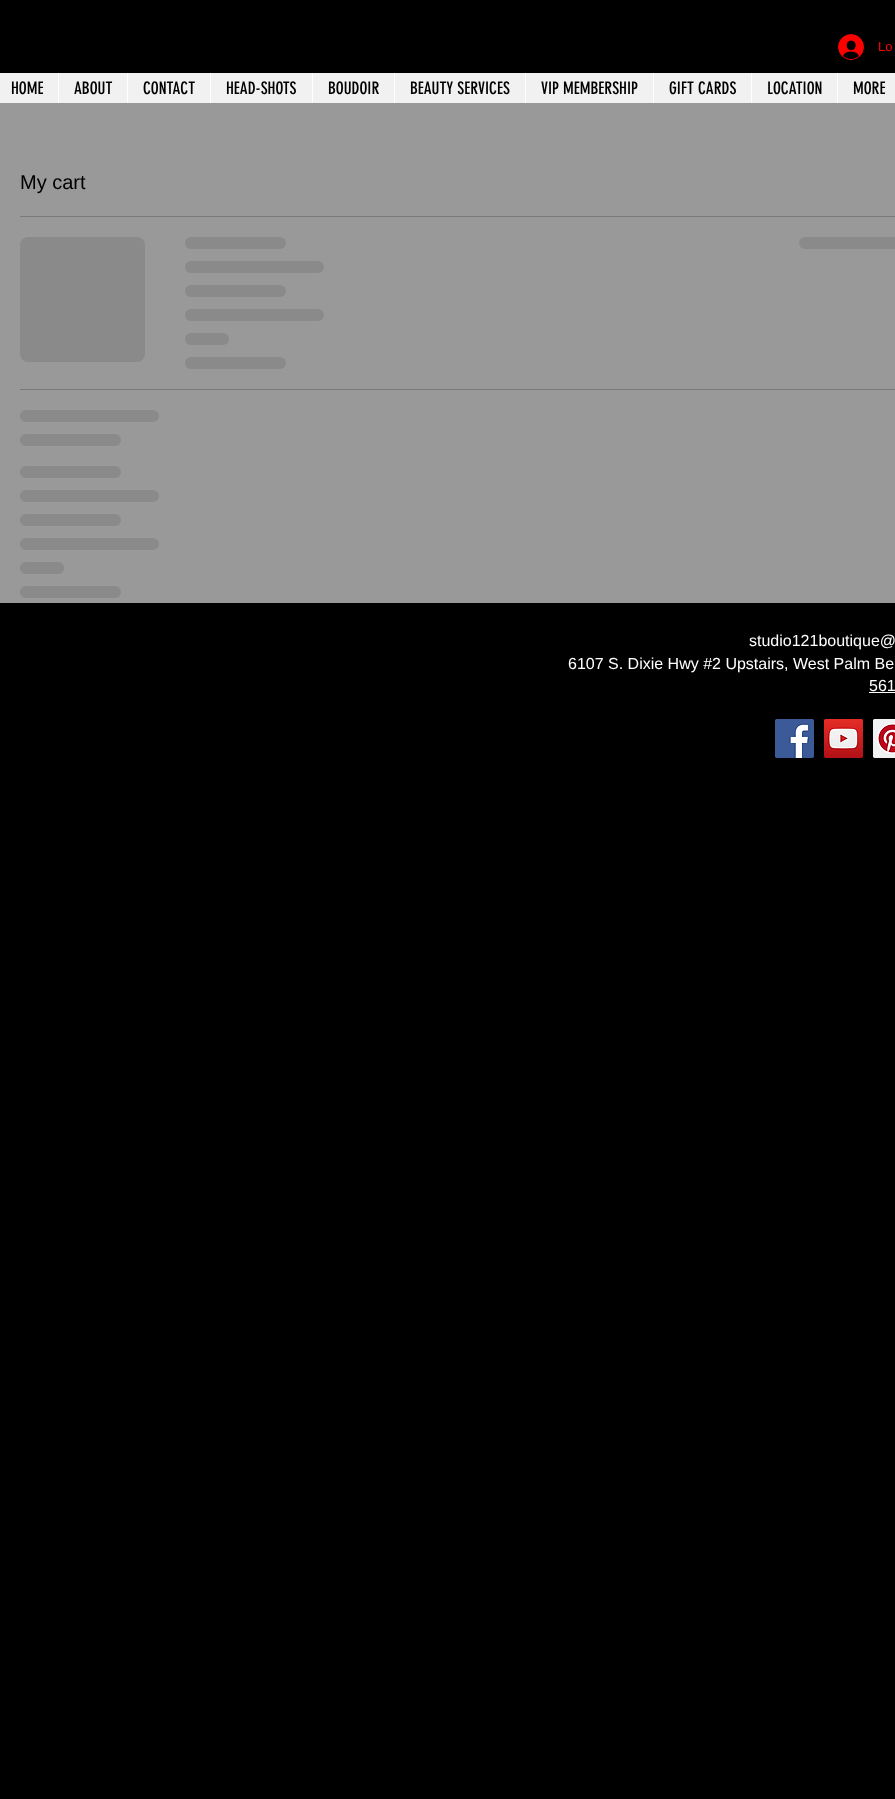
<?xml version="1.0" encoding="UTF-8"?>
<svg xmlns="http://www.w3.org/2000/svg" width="895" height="1799">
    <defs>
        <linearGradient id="g1" gradientUnits="userSpaceOnUse" x1="20" y1="300" x2="520" y2="300"><stop offset="0.25" stop-color="#8A8A8A"/><stop offset="0.37" stop-color="#7A7A7A"/><stop offset="0.63" stop-color="#8A8A8A"/></linearGradient>
        <linearGradient id="g2" gradientUnits="userSpaceOnUse" x1="185" y1="243" x2="589" y2="243"><stop offset="0.25" stop-color="#8A8A8A"/><stop offset="0.37" stop-color="#7A7A7A"/><stop offset="0.63" stop-color="#8A8A8A"/></linearGradient>
        <linearGradient id="g3" gradientUnits="userSpaceOnUse" x1="185" y1="267" x2="741" y2="267"><stop offset="0.25" stop-color="#8A8A8A"/><stop offset="0.37" stop-color="#7A7A7A"/><stop offset="0.63" stop-color="#8A8A8A"/></linearGradient>
        <linearGradient id="g4" gradientUnits="userSpaceOnUse" x1="185" y1="291" x2="589" y2="291"><stop offset="0.25" stop-color="#8A8A8A"/><stop offset="0.37" stop-color="#7A7A7A"/><stop offset="0.63" stop-color="#8A8A8A"/></linearGradient>
        <linearGradient id="g5" gradientUnits="userSpaceOnUse" x1="185" y1="315" x2="741" y2="315"><stop offset="0.25" stop-color="#8A8A8A"/><stop offset="0.37" stop-color="#7A7A7A"/><stop offset="0.63" stop-color="#8A8A8A"/></linearGradient>
        <linearGradient id="g6" gradientUnits="userSpaceOnUse" x1="185" y1="339" x2="361" y2="339"><stop offset="0.25" stop-color="#8A8A8A"/><stop offset="0.37" stop-color="#7A7A7A"/><stop offset="0.63" stop-color="#8A8A8A"/></linearGradient>
        <linearGradient id="g7" gradientUnits="userSpaceOnUse" x1="185" y1="363" x2="589" y2="363"><stop offset="0.25" stop-color="#8A8A8A"/><stop offset="0.37" stop-color="#7A7A7A"/><stop offset="0.63" stop-color="#8A8A8A"/></linearGradient>
        <linearGradient id="g8" gradientUnits="userSpaceOnUse" x1="799" y1="243" x2="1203" y2="243"><stop offset="0.25" stop-color="#8A8A8A"/><stop offset="0.37" stop-color="#7A7A7A"/><stop offset="0.63" stop-color="#8A8A8A"/></linearGradient>
        <linearGradient id="g9" gradientUnits="userSpaceOnUse" x1="20" y1="416" x2="576" y2="416"><stop offset="0.25" stop-color="#8A8A8A"/><stop offset="0.37" stop-color="#7A7A7A"/><stop offset="0.63" stop-color="#8A8A8A"/></linearGradient>
        <linearGradient id="g10" gradientUnits="userSpaceOnUse" x1="20" y1="440" x2="424" y2="440"><stop offset="0.25" stop-color="#8A8A8A"/><stop offset="0.37" stop-color="#7A7A7A"/><stop offset="0.63" stop-color="#8A8A8A"/></linearGradient>
        <linearGradient id="g11" gradientUnits="userSpaceOnUse" x1="20" y1="472" x2="424" y2="472"><stop offset="0.25" stop-color="#8A8A8A"/><stop offset="0.37" stop-color="#7A7A7A"/><stop offset="0.63" stop-color="#8A8A8A"/></linearGradient>
        <linearGradient id="g12" gradientUnits="userSpaceOnUse" x1="20" y1="496" x2="576" y2="496"><stop offset="0.25" stop-color="#8A8A8A"/><stop offset="0.37" stop-color="#7A7A7A"/><stop offset="0.63" stop-color="#8A8A8A"/></linearGradient>
        <linearGradient id="g13" gradientUnits="userSpaceOnUse" x1="20" y1="520" x2="424" y2="520"><stop offset="0.25" stop-color="#8A8A8A"/><stop offset="0.37" stop-color="#7A7A7A"/><stop offset="0.63" stop-color="#8A8A8A"/></linearGradient>
        <linearGradient id="g14" gradientUnits="userSpaceOnUse" x1="20" y1="544" x2="576" y2="544"><stop offset="0.25" stop-color="#8A8A8A"/><stop offset="0.37" stop-color="#7A7A7A"/><stop offset="0.63" stop-color="#8A8A8A"/></linearGradient>
        <linearGradient id="g15" gradientUnits="userSpaceOnUse" x1="20" y1="568" x2="196" y2="568"><stop offset="0.25" stop-color="#8A8A8A"/><stop offset="0.37" stop-color="#7A7A7A"/><stop offset="0.63" stop-color="#8A8A8A"/></linearGradient>
        <linearGradient id="g16" gradientUnits="userSpaceOnUse" x1="20" y1="592" x2="424" y2="592"><stop offset="0.25" stop-color="#8A8A8A"/><stop offset="0.37" stop-color="#7A7A7A"/><stop offset="0.63" stop-color="#8A8A8A"/></linearGradient>
    </defs>
    <rect width="100%" height="100%" fill="#000000"/>
    <image x="838" y="34" width="26" height="26" href="img_01.png"/>
    <text x="878" y="51" font-family="Liberation Sans" font-size="13" fill="#FF0000">Lo</text>
    <rect x="0" y="73" width="895" height="30" fill="#F1F1F1"/>
    <text x="11" y="94" font-family="'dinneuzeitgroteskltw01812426'" font-size="17" fill="#000000">HOME</text>
    <rect x="58" y="73" width="1" height="30" fill="#FFFFFF"/>
    <text x="74" y="94" font-family="'dinneuzeitgroteskltw01812426'" font-size="17" fill="#000000">ABOUT</text>
    <rect x="127" y="73" width="1" height="30" fill="#FFFFFF"/>
    <text x="143" y="94" font-family="'dinneuzeitgroteskltw01812426'" font-size="17" fill="#000000">CONTACT</text>
    <rect x="210" y="73" width="1" height="30" fill="#FFFFFF"/>
    <text x="226" y="94" font-family="'dinneuzeitgroteskltw01812426'" font-size="17" fill="#000000">HEAD-SHOTS</text>
    <rect x="312" y="73" width="1" height="30" fill="#FFFFFF"/>
    <text x="328" y="94" font-family="'dinneuzeitgroteskltw01812426'" font-size="17" fill="#000000">BOUDOIR</text>
    <rect x="394" y="73" width="1" height="30" fill="#FFFFFF"/>
    <text x="410" y="94" font-family="'dinneuzeitgroteskltw01812426'" font-size="17" fill="#000000">BEAUTY SERVICES</text>
    <rect x="525" y="73" width="1" height="30" fill="#FFFFFF"/>
    <text x="541" y="94" font-family="'dinneuzeitgroteskltw01812426'" font-size="17" fill="#000000">VIP MEMBERSHIP</text>
    <rect x="653" y="73" width="1" height="30" fill="#FFFFFF"/>
    <text x="669" y="94" font-family="'dinneuzeitgroteskltw01812426'" font-size="17" fill="#000000">GIFT CARDS</text>
    <rect x="751" y="73" width="1" height="30" fill="#FFFFFF"/>
    <text x="767" y="94" font-family="'dinneuzeitgroteskltw01812426'" font-size="17" fill="#000000">LOCATION</text>
    <rect x="837" y="73" width="1" height="30" fill="#FFFFFF"/>
    <text x="853" y="94" font-family="'dinneuzeitgroteskltw01812426'" font-size="17" fill="#000000">MORE</text>
    <rect x="0" y="103" width="895" height="500" fill="#999999"/>
    <rect x="20" y="216" width="875" height="1" fill="#7A7A7A"/>
    <text x="20" y="189" font-family="Liberation Sans" font-size="20" fill="#000000">My cart</text>
    <rect x="20" y="237" width="125" height="125" rx="8" fill="url(#g1)"/>
    <rect x="185" y="237" width="101" height="12" rx="6" fill="url(#g2)"/>
    <rect x="185" y="261" width="139" height="12" rx="6" fill="url(#g3)"/>
    <rect x="185" y="285" width="101" height="12" rx="6" fill="url(#g4)"/>
    <rect x="185" y="309" width="139" height="12" rx="6" fill="url(#g5)"/>
    <rect x="185" y="333" width="44" height="12" rx="6" fill="url(#g6)"/>
    <rect x="185" y="357" width="101" height="12" rx="6" fill="url(#g7)"/>
    <rect x="799" y="237" width="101" height="12" rx="6" fill="url(#g8)"/>
    <rect x="20" y="389" width="875" height="1" fill="#7A7A7A"/>
    <rect x="20" y="410" width="139" height="12" rx="6" fill="url(#g9)"/>
    <rect x="20" y="434" width="101" height="12" rx="6" fill="url(#g10)"/>
    <rect x="20" y="466" width="101" height="12" rx="6" fill="url(#g11)"/>
    <rect x="20" y="490" width="139" height="12" rx="6" fill="url(#g12)"/>
    <rect x="20" y="514" width="101" height="12" rx="6" fill="url(#g13)"/>
    <rect x="20" y="538" width="139" height="12" rx="6" fill="url(#g14)"/>
    <rect x="20" y="562" width="44" height="12" rx="6" fill="url(#g15)"/>
    <rect x="20" y="586" width="101" height="12" rx="6" fill="url(#g16)"/>
    <text x="749" y="646" font-family="Liberation Sans" font-size="16" fill="#FFFFFF">studio121boutique@</text>
    <text x="568" y="669" font-family="Liberation Sans" font-size="16" fill="#FFFFFF">6107 S. Dixie Hwy #2 Upstairs, West Palm Be</text>
    <text x="869" y="691" font-family="Liberation Sans" font-size="16" fill="#FFFFFF">561</text>
    <rect x="869" y="692" width="26" height="1" fill="#FFFFFF"/>
    <image x="775" y="719" width="39" height="39" href="img_02.png"/>
    <image x="824" y="719" width="39" height="39" href="img_03.png"/>
    <image x="873" y="719" width="22" height="39" href="img_04.png"/>
</svg>
